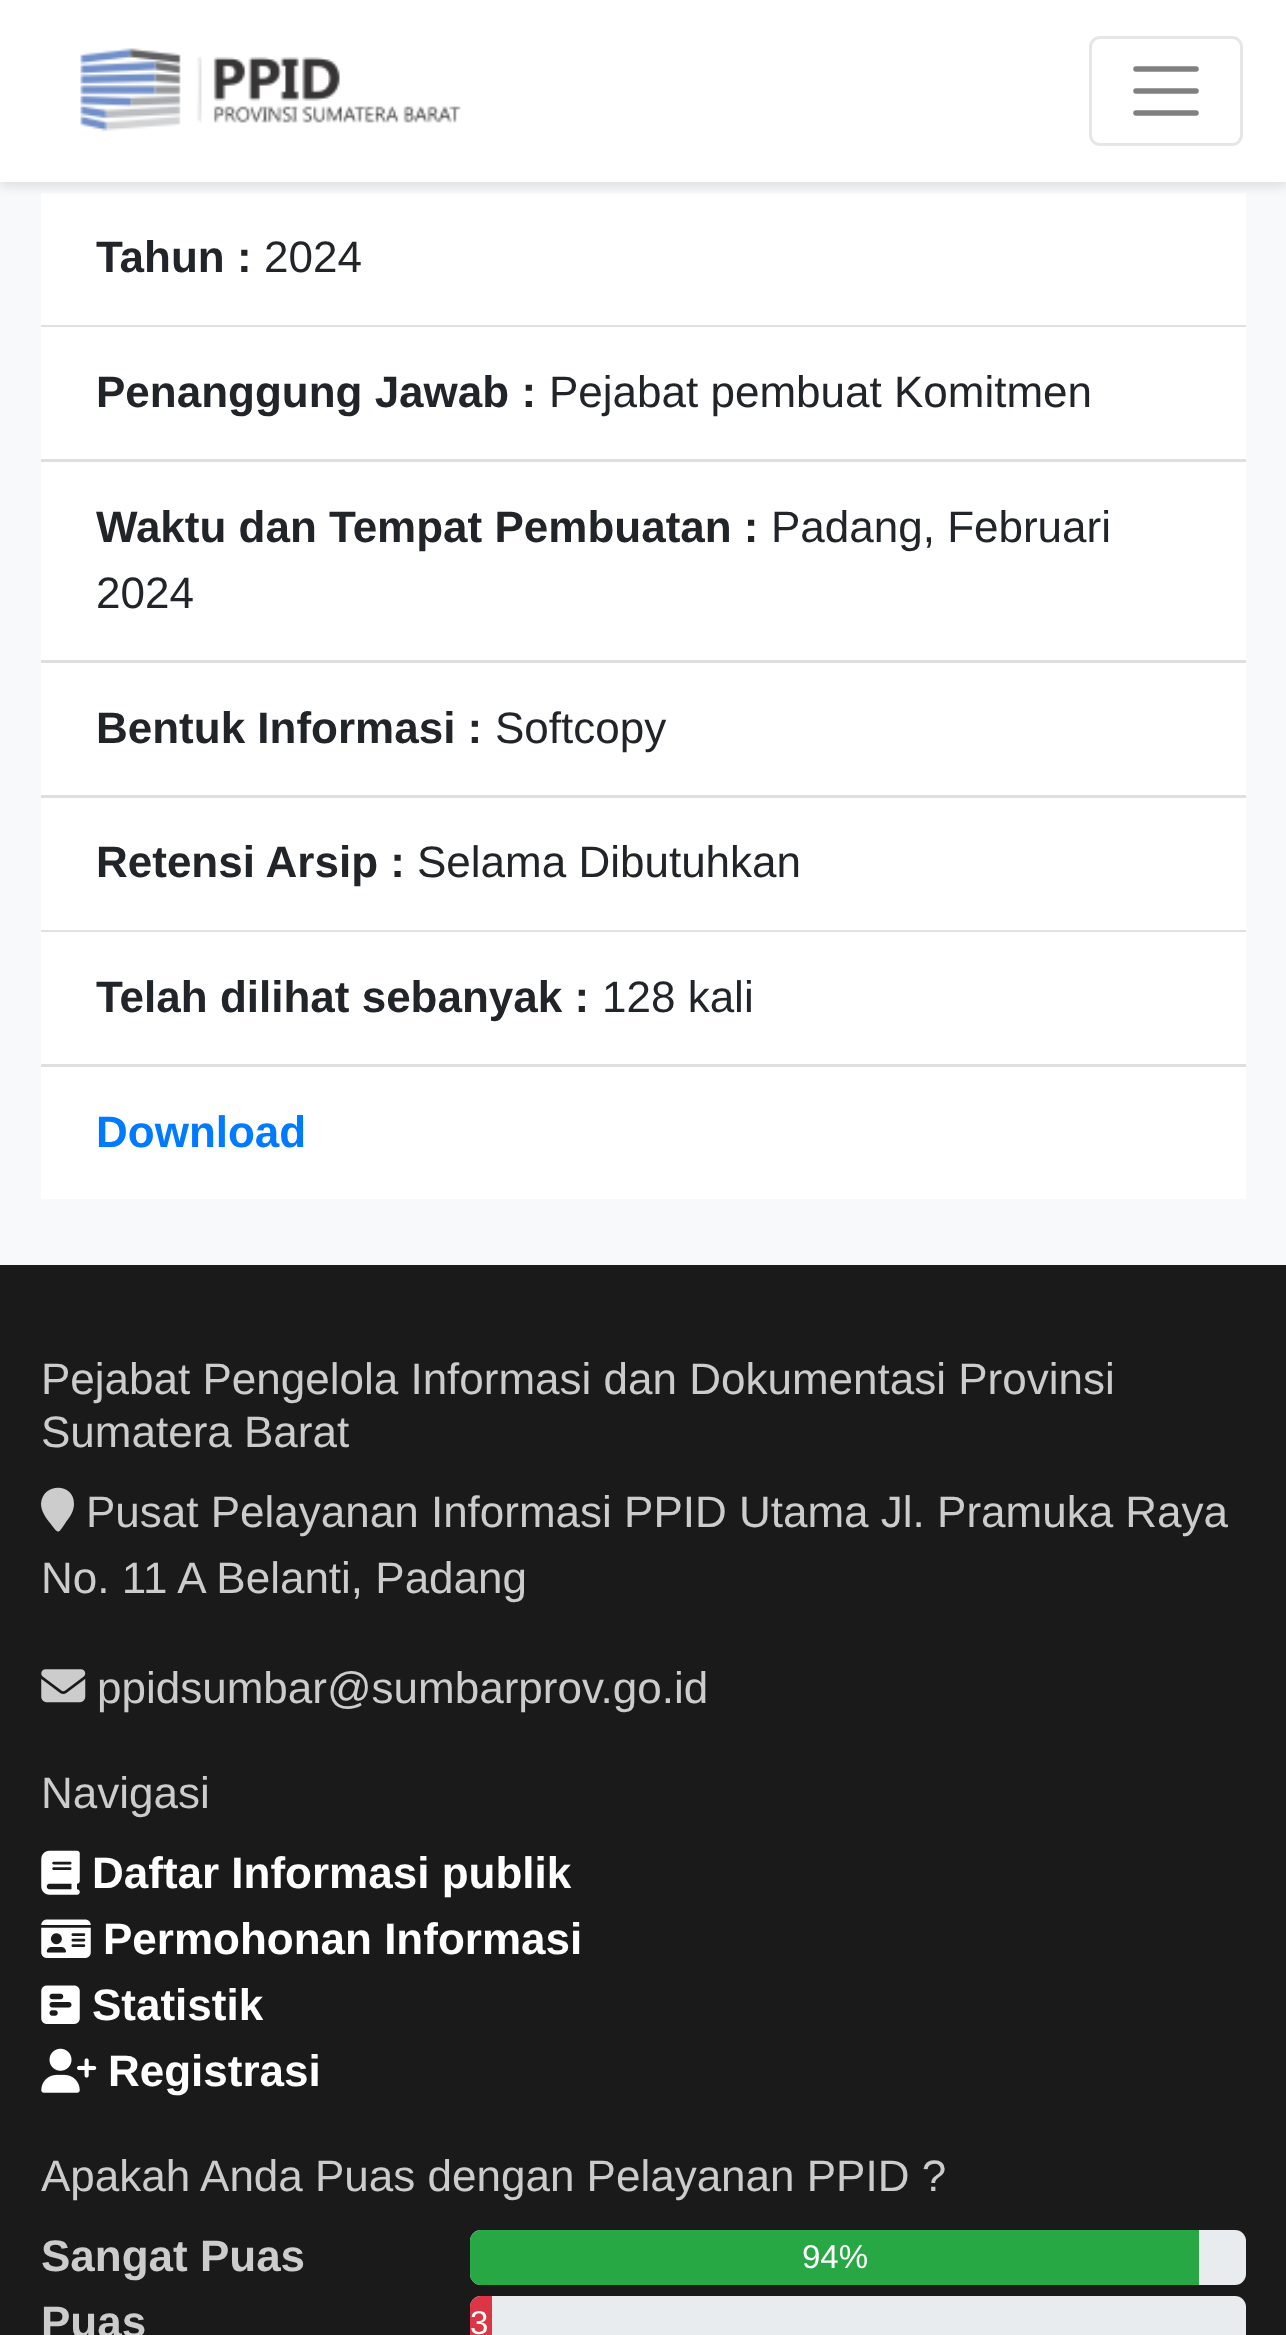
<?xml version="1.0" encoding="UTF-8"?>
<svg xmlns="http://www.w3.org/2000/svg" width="1286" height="2335">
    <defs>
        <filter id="blur1" x="-50%" y="-200%" width="200%" height="500%"><feGaussianBlur stdDeviation="5.5"/></filter>
    </defs>
    <rect width="100%" height="100%" fill="#F8F9FA"/>
    <rect x="41" y="193" width="1205" height="132" fill="#FFFFFF"/>
    <rect x="0" y="6" width="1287" height="181" fill="#000000" fill-opacity="0.1" filter="url(#blur1)"/>
    <rect x="0" y="0" width="1286" height="182" fill="#FFFFFF"/>
    <image x="80" y="48" width="381" height="84" href="img_01.png"/>
    <rect x="1090.5" y="37.5" width="151" height="107" rx="9.5" fill="none" stroke="#E6E6E6" stroke-width="3"/>
    <path d="M 1136 69 H 1196 M 1136 91 H 1196 M 1136 113 H 1196" fill="none" stroke="#808080" stroke-width="5.5" stroke-linecap="round"/>
    <rect x="41" y="325" width="1205" height="2" fill="#E0E0E0"/>
    <text x="96" y="272" font-family="Liberation Sans" font-size="44" font-weight="700" fill="#212529">Tahun :</text>
    <text x="264" y="272" font-family="Liberation Sans" font-size="44" fill="#212529">2024</text>
    <rect x="41" y="327" width="1205" height="132" fill="#FFFFFF"/>
    <rect x="41" y="459" width="1205" height="3" fill="#DFDFDF"/>
    <text x="96" y="407" font-family="Liberation Sans" font-size="44" font-weight="700" fill="#212529">Penanggung Jawab :</text>
    <text x="549" y="407" font-family="Liberation Sans" font-size="44" fill="#212529">Pejabat pembuat Komitmen</text>
    <rect x="41" y="462" width="1205" height="198" fill="#FFFFFF"/>
    <rect x="41" y="660" width="1205" height="3" fill="#DFDFDF"/>
    <text x="96" y="542" font-family="Liberation Sans" font-size="44" font-weight="700" fill="#212529">Waktu dan Tempat Pembuatan :</text>
    <text x="771" y="542" font-family="Liberation Sans" font-size="44" fill="#212529">Padang, Februari</text>
    <text x="96" y="608" font-family="Liberation Sans" font-size="44" fill="#212529">2024</text>
    <rect x="41" y="663" width="1205" height="132" fill="#FFFFFF"/>
    <rect x="41" y="795" width="1205" height="3" fill="#DFDFDF"/>
    <text x="96" y="743" font-family="Liberation Sans" font-size="44" font-weight="700" fill="#212529">Bentuk Informasi :</text>
    <text x="495" y="743" font-family="Liberation Sans" font-size="44" fill="#212529">Softcopy</text>
    <rect x="41" y="798" width="1205" height="132" fill="#FFFFFF"/>
    <rect x="41" y="930" width="1205" height="2" fill="#E0E0E0"/>
    <text x="96" y="877" font-family="Liberation Sans" font-size="44" font-weight="700" fill="#212529">Retensi Arsip :</text>
    <text x="417" y="877" font-family="Liberation Sans" font-size="44" fill="#212529">Selama Dibutuhkan</text>
    <rect x="41" y="932" width="1205" height="132" fill="#FFFFFF"/>
    <rect x="41" y="1064" width="1205" height="3" fill="#DFDFDF"/>
    <text x="96" y="1012" font-family="Liberation Sans" font-size="44" font-weight="700" fill="#212529">Telah dilihat sebanyak :</text>
    <text x="602" y="1012" font-family="Liberation Sans" font-size="44" fill="#212529">128 kali</text>
    <rect x="41" y="1067" width="1205" height="132" fill="#FFFFFF"/>
    <text x="96" y="1147" font-family="Liberation Sans" font-size="44" font-weight="700" fill="#007BFF">Download</text>
    <rect x="0" y="1265" width="1286" height="1070" fill="#1A1A1A"/>
    <text font-family="Liberation Sans" font-size="44" fill="#CCCCCC">
        <tspan x="41" y="1394">Pejabat Pengelola Informasi dan Dokumentasi Provinsi</tspan>
        <tspan x="41" y="1447">Sumatera Barat</tspan>
    </text>
    <path d="M 74 1504 C 74 1511 70 1517 66 1522 C 58 1534 59 1535 50 1523 C 46 1518 41 1511 41 1504 C 42 1483 74 1482 74 1504 Z" fill="#CCCCCC"/>
    <text x="86" y="1527" font-family="Liberation Sans" font-size="44" fill="#CCCCCC">Pusat Pelayanan Informasi PPID Utama Jl. Pramuka Raya</text>
    <text x="41" y="1593" font-family="Liberation Sans" font-size="44" fill="#CCCCCC">No. 11 A Belanti, Padang</text>
    <image x="41" y="1669" width="45" height="34" href="img_02.png"/>
    <text x="97" y="1703" font-family="Liberation Sans" font-size="44" fill="#CCCCCC">ppidsumbar@sumbarprov.go.id</text>
    <text x="41" y="1808" font-family="Liberation Sans" font-size="44" fill="#CCCCCC">Navigasi</text>
    <image x="41" y="1850" width="39" height="45" href="img_03.png"/>
    <text x="92" y="1888" font-family="Liberation Sans" font-size="44" font-weight="700" fill="#FFFFFF">Daftar Informasi publik</text>
    <image x="41" y="1919" width="50" height="39" href="img_04.png"/>
    <text x="103" y="1954" font-family="Liberation Sans" font-size="44" font-weight="700" fill="#FFFFFF">Permohonan Informasi</text>
    <image x="41" y="1985" width="39" height="39" href="img_05.png"/>
    <text x="92" y="2020" font-family="Liberation Sans" font-size="44" font-weight="700" fill="#FFFFFF">Statistik</text>
    <image x="41" y="2048" width="56" height="45" href="img_06.png"/>
    <text x="108" y="2086" font-family="Liberation Sans" font-size="44" font-weight="700" fill="#FFFFFF">Registrasi</text>
    <text x="41" y="2191" font-family="Liberation Sans" font-size="44" fill="#CCCCCC">Apakah Anda Puas dengan Pelayanan PPID ?</text>
    <text x="41" y="2271" font-family="Liberation Sans" font-size="44" font-weight="700" fill="#CCCCCC">Sangat Puas</text>
    <rect x="470" y="2230" width="776" height="55" rx="11" fill="#E9ECEF"/>
    <path d="M 481 2230 H 1199 V 2285 H 481 C 475 2285 470 2280 470 2274 V 2241 C 470 2235 475 2230 481 2230 Z" fill="#28A745"/>
    <text x="802" y="2268" font-family="Liberation Sans" font-size="33" fill="#FFFFFF">94%</text>
    <text x="41" y="2337" font-family="Liberation Sans" font-size="44" font-weight="700" fill="#CCCCCC">Puas</text>
    <rect x="470" y="2296" width="776" height="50" rx="11" fill="#E9ECEF"/>
    <path d="M 481 2296 H 492 V 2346 H 481 C 475 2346 470 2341 470 2335 V 2307 C 470 2301 475 2296 481 2296 Z" fill="#DC3545"/>
    <text x="470" y="2334" font-family="Liberation Sans" font-size="33" fill="#FFFFFF">3</text>
</svg>
